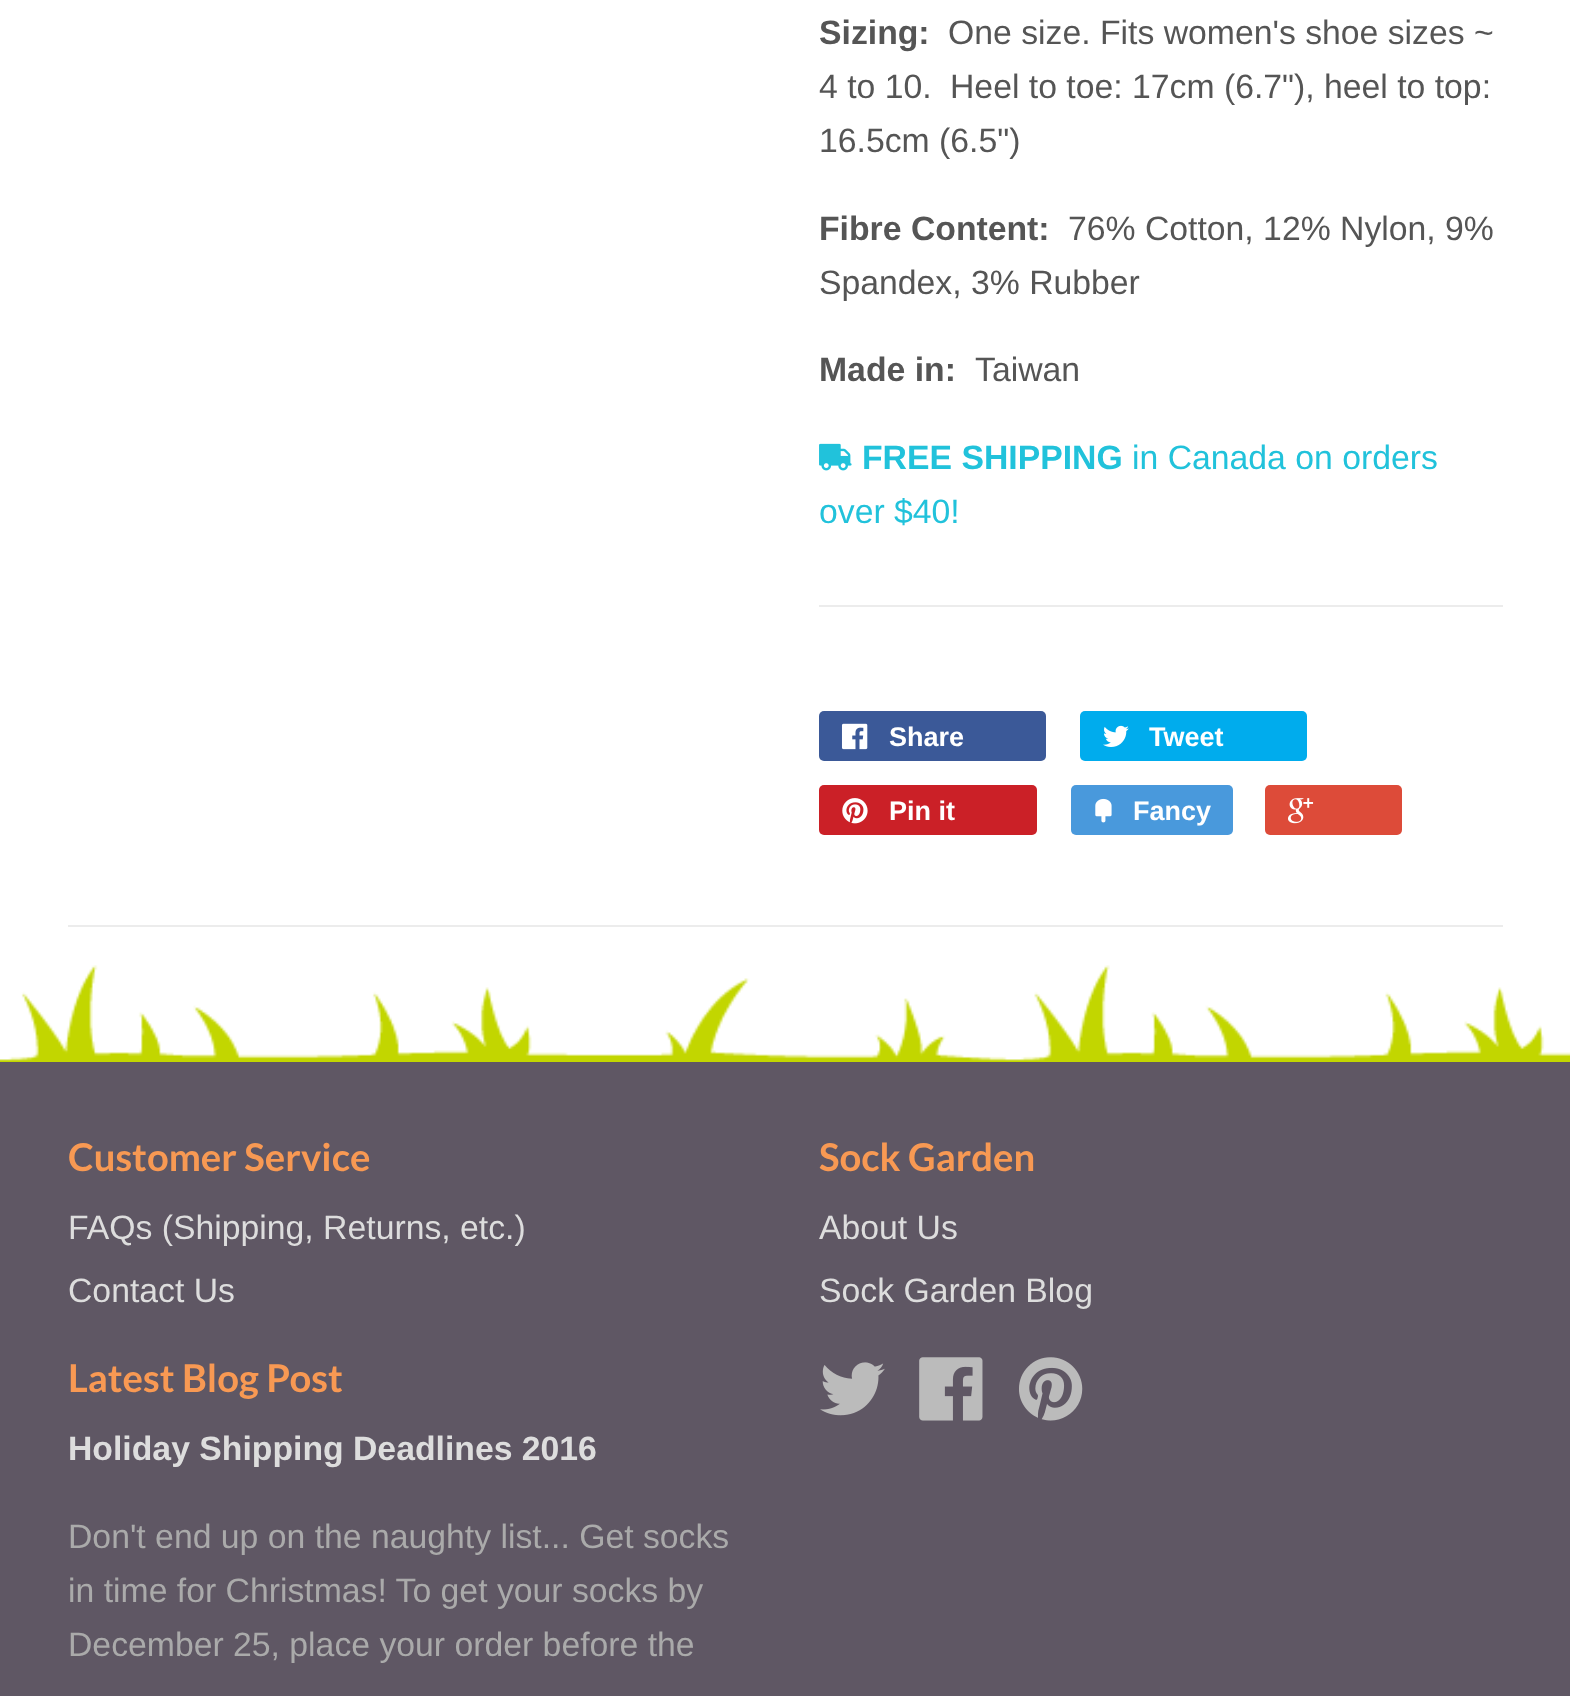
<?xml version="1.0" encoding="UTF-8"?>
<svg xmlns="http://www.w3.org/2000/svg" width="1570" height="1696">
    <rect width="100%" height="100%" fill="#FFFFFF"/>
    <text x="819" y="44" font-family="Liberation Sans" font-size="33.75" font-weight="700" fill="#555555">Sizing:</text>
    <text x="948" y="44" font-family="Liberation Sans" font-size="33.75" fill="#555555">One size. Fits women's shoe sizes ~</text>
    <text x="819" y="98" font-family="Liberation Sans" font-size="33.75" fill="#555555">4 to 10.</text>
    <text x="950" y="98" font-family="Liberation Sans" font-size="33.75" fill="#555555">Heel to toe: 17cm (6.7"), heel to top:</text>
    <text x="819" y="152" font-family="Liberation Sans" font-size="33.75" fill="#555555">16.5cm (6.5")</text>
    <text x="819" y="240" font-family="Liberation Sans" font-size="33.75" font-weight="700" fill="#555555">Fibre Content:</text>
    <text x="1068" y="240" font-family="Liberation Sans" font-size="33.75" fill="#555555">76% Cotton, 12% Nylon, 9%</text>
    <text x="819" y="294" font-family="Liberation Sans" font-size="33.75" fill="#555555">Spandex, 3% Rubber</text>
    <text x="819" y="381" font-family="Liberation Sans" font-size="33.75" font-weight="700" fill="#555555">Made in:</text>
    <text x="975" y="381" font-family="Liberation Sans" font-size="33.75" fill="#555555">Taiwan</text>
    <image x="819" y="443" width="33" height="28" href="img_01.png"/>
    <text x="862" y="469" font-family="Liberation Sans" font-size="33.75" font-weight="700" fill="#21C2DB">FREE SHIPPING</text>
    <text x="1132" y="469" font-family="Liberation Sans" font-size="33.75" fill="#21C2DB">in Canada on orders</text>
    <text x="819" y="523" font-family="Liberation Sans" font-size="33.75" fill="#21C2DB">over $40!</text>
    <rect x="819" y="605" width="684" height="2" fill="#ECECEC"/>
    <rect x="819" y="711" width="227" height="50" rx="5" fill="#3B5998"/>
    <image x="841" y="723" width="27" height="27" href="img_02.png"/>
    <text x="889" y="746" font-family="Liberation Sans" font-size="27" font-weight="700" fill="#FFFFFF">Share</text>
    <rect x="1080" y="711" width="227" height="50" rx="5" fill="#00ACED"/>
    <image x="1103" y="725" width="26" height="22" href="img_03.png"/>
    <text x="1149" y="746" font-family="Liberation Sans" font-size="27" font-weight="700" fill="#FFFFFF">Tweet</text>
    <rect x="819" y="785" width="218" height="50" rx="5" fill="#CB2027"/>
    <image x="842" y="798" width="26" height="26" href="img_04.png"/>
    <text x="889" y="820" font-family="Liberation Sans" font-size="27" font-weight="700" fill="#FFFFFF">Pin it</text>
    <rect x="1071" y="785" width="162" height="50" rx="5" fill="#4999DC"/>
    <image x="1095" y="798" width="17" height="25" href="img_05.png"/>
    <text x="1133" y="820" font-family="Liberation Sans" font-size="27" font-weight="700" fill="#FFFFFF">Fancy</text>
    <rect x="1265" y="785" width="137" height="50" rx="5" fill="#DD4B39"/>
    <image x="1288" y="798" width="26" height="26" href="img_06.png"/>
    <rect x="68" y="925" width="1435" height="2" fill="#ECECEC"/>
    <image x="0" y="965" width="1570" height="97" href="img_07.png"/>
    <rect x="0" y="1062" width="1570" height="634" fill="#5F5764"/>
    <text x="68" y="1171" font-family="Lato" font-size="38.25" font-weight="700" fill="#F89953">Customer Service</text>
    <text font-family="Liberation Sans" font-size="33.75" fill="#DDDDDD">
        <tspan x="68" y="1239">FAQs (Shipping, Returns, etc.)</tspan>
        <tspan x="68" y="1302">Contact Us</tspan>
    </text>
    <text x="68" y="1392" font-family="Lato" font-size="38.25" font-weight="700" fill="#F89953">Latest Blog Post</text>
    <text x="68" y="1460" font-family="Liberation Sans" font-size="33.75" font-weight="700" fill="#DDDDDD">Holiday Shipping Deadlines 2016</text>
    <text font-family="Liberation Sans" font-size="33.75" fill="#AAAAAA">
        <tspan x="68" y="1548">Don't end up on the naughty list... Get socks</tspan>
        <tspan x="68" y="1602">in time for Christmas! To get your socks by</tspan>
        <tspan x="68" y="1656">December 25, place your order before the</tspan>
    </text>
    <text x="819" y="1171" font-family="Lato" font-size="38.25" font-weight="700" fill="#F89953">Sock Garden</text>
    <text font-family="Liberation Sans" font-size="33.75" fill="#DDDDDD">
        <tspan x="819" y="1239">About Us</tspan>
        <tspan x="819" y="1302">Sock Garden Blog</tspan>
    </text>
    <image x="820" y="1362" width="65" height="54" href="img_08.png"/>
    <image x="919" y="1357" width="64" height="64" href="img_09.png"/>
    <image x="1019" y="1357" width="64" height="64" href="img_10.png"/>
</svg>
